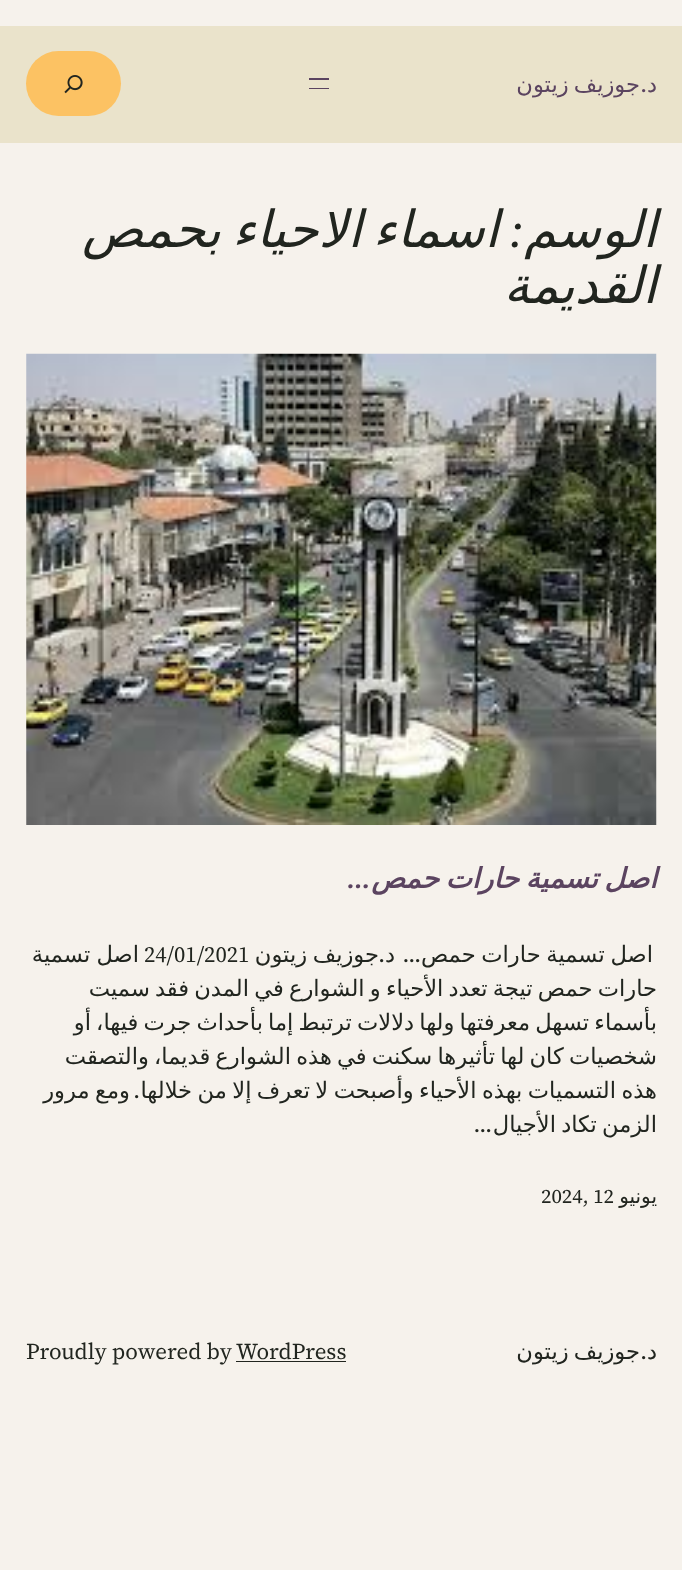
<?xml version="1.0" encoding="UTF-8"?>
<svg xmlns="http://www.w3.org/2000/svg" width="682" height="1570">
    <rect width="100%" height="100%" fill="#F6F2EC"/>
    <rect x="0" y="26" width="682" height="117" fill="#EAE3CB"/>
    <text x="657" y="92" font-family="DejaVu Sans" font-size="22.6" direction="rtl" fill="#5B4460">د</text>
    <text x="647" y="92" font-family="'Source Serif 4'" font-size="22.6" direction="rtl" fill="#5B4460">.</text>
    <text x="640" y="92" word-spacing="-2" font-family="DejaVu Sans" font-size="22.6" direction="rtl" fill="#5B4460">جوزيف زيتون</text>
    <rect x="309" y="78" width="20" height="2" fill="#5B4460"/>
    <rect x="309" y="88" width="20" height="1" fill="#5B4460"/>
    <rect x="26" y="51" width="95" height="65" rx="32.5" fill="#FCC263"/>
    <image x="64" y="75" width="19" height="19" href="img_01.png"/>
    <text x="657" y="247" font-family="DejaVu Sans" font-size="51" font-style="italic" direction="rtl" fill="#21251F">الوسم</text>
    <text x="524" y="247" font-family="'Source Serif 4'" font-size="51" font-style="italic" direction="rtl" fill="#21251F">:</text>
    <text x="499" y="247" word-spacing="-5" font-family="DejaVu Sans" font-size="51" font-style="italic" direction="rtl" fill="#21251F">اسماء الاحياء بحمص</text>
    <text x="657" y="303" font-family="DejaVu Sans" font-size="51" font-style="italic" direction="rtl" fill="#21251F">القديمة</text>
    <image x="26" y="353" width="631" height="472" href="img_02.png"/>
    <text x="657" y="888" word-spacing="-2.5" font-family="DejaVu Sans" font-size="28" font-weight="700" font-style="italic" direction="rtl" fill="#5B4460">اصل تسمية حارات حمص</text>
    <text x="371" y="888" font-family="'Source Serif 4'" font-size="28" font-weight="600" font-style="italic" direction="rtl" fill="#5B4460">…</text>
    <text x="653" y="962" word-spacing="-1.5" font-family="DejaVu Sans" font-size="22.6" direction="rtl" fill="#21251F">اصل تسمية حارات حمص</text>
    <text x="421" y="962" font-family="'Source Serif 4'" font-size="22.6" direction="rtl" fill="#21251F">…</text>
    <text x="395" y="962" font-family="DejaVu Sans" font-size="22.6" direction="rtl" fill="#21251F">د</text>
    <text x="385" y="962" font-family="'Source Serif 4'" font-size="22.6" direction="rtl" fill="#21251F">.</text>
    <text x="379" y="962" word-spacing="-1.5" font-family="DejaVu Sans" font-size="22.6" direction="rtl" fill="#21251F">جوزيف زيتون</text>
    <text x="144" y="962" font-family="'Source Serif 4'" font-size="22.6" fill="#21251F">24/01/2021</text>
    <text x="139" y="962" word-spacing="-1" font-family="DejaVu Sans" font-size="22.6" direction="rtl" fill="#21251F">اصل تسمية</text>
    <text font-family="DejaVu Sans" font-size="22.6" direction="rtl" fill="#21251F">
        <tspan x="657" y="996" word-spacing="-2">حارات حمص تيجة تعدد الأحياء و الشوارع في المدن فقد سميت</tspan>
        <tspan x="657" y="1030" word-spacing="-2">بأسماء تسهل معرفتها ولها دلالات ترتبط إما بأحداث جرت فيها، أو</tspan>
        <tspan x="657" y="1064" word-spacing="-2">شخصيات كان لها تأثيرها سكنت في هذه الشوارع قديما، والتصقت</tspan>
        <tspan x="657" y="1098" word-spacing="-1.75">هذه التسميات بهذه الأحياء وأصبحت لا تعرف إلا من خلالها</tspan>
    </text>
    <text x="140" y="1098" font-family="'Source Serif 4'" font-size="22.6" direction="rtl" fill="#21251F">.</text>
    <text x="130" y="1098" word-spacing="-1.75" font-family="DejaVu Sans" font-size="22.6" direction="rtl" fill="#21251F">ومع مرور</text>
    <text x="657" y="1132" word-spacing="-2" font-family="DejaVu Sans" font-size="22.6" direction="rtl" fill="#21251F">الزمن تكاد الأجيال</text>
    <text x="492" y="1132" font-family="'Source Serif 4'" font-size="22.6" direction="rtl" fill="#21251F">…</text>
    <text x="657" y="1203" font-family="DejaVu Sans" font-size="20" direction="rtl" fill="#21251F">يونيو</text>
    <text x="541" y="1203" font-family="'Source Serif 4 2'" font-size="20" fill="#21251F">2024, 12</text>
    <text x="657" y="1359" font-family="DejaVu Sans" font-size="22.6" direction="rtl" fill="#21251F">د</text>
    <text x="647" y="1359" font-family="'Source Serif 4'" font-size="22.6" direction="rtl" fill="#21251F">.</text>
    <text x="640" y="1359" word-spacing="-2" font-family="DejaVu Sans" font-size="22.6" direction="rtl" fill="#21251F">جوزيف زيتون</text>
    <text x="236" y="1359" font-family="'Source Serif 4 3'" font-size="22.6" fill="#21251F">WordPress</text>
    <rect x="236" y="1361" width="110" height="1" fill="#21251F"/>
    <text x="26" y="1359" font-family="'Source Serif 4 3'" font-size="22.6" fill="#21251F">Proudly powered by</text>
</svg>
